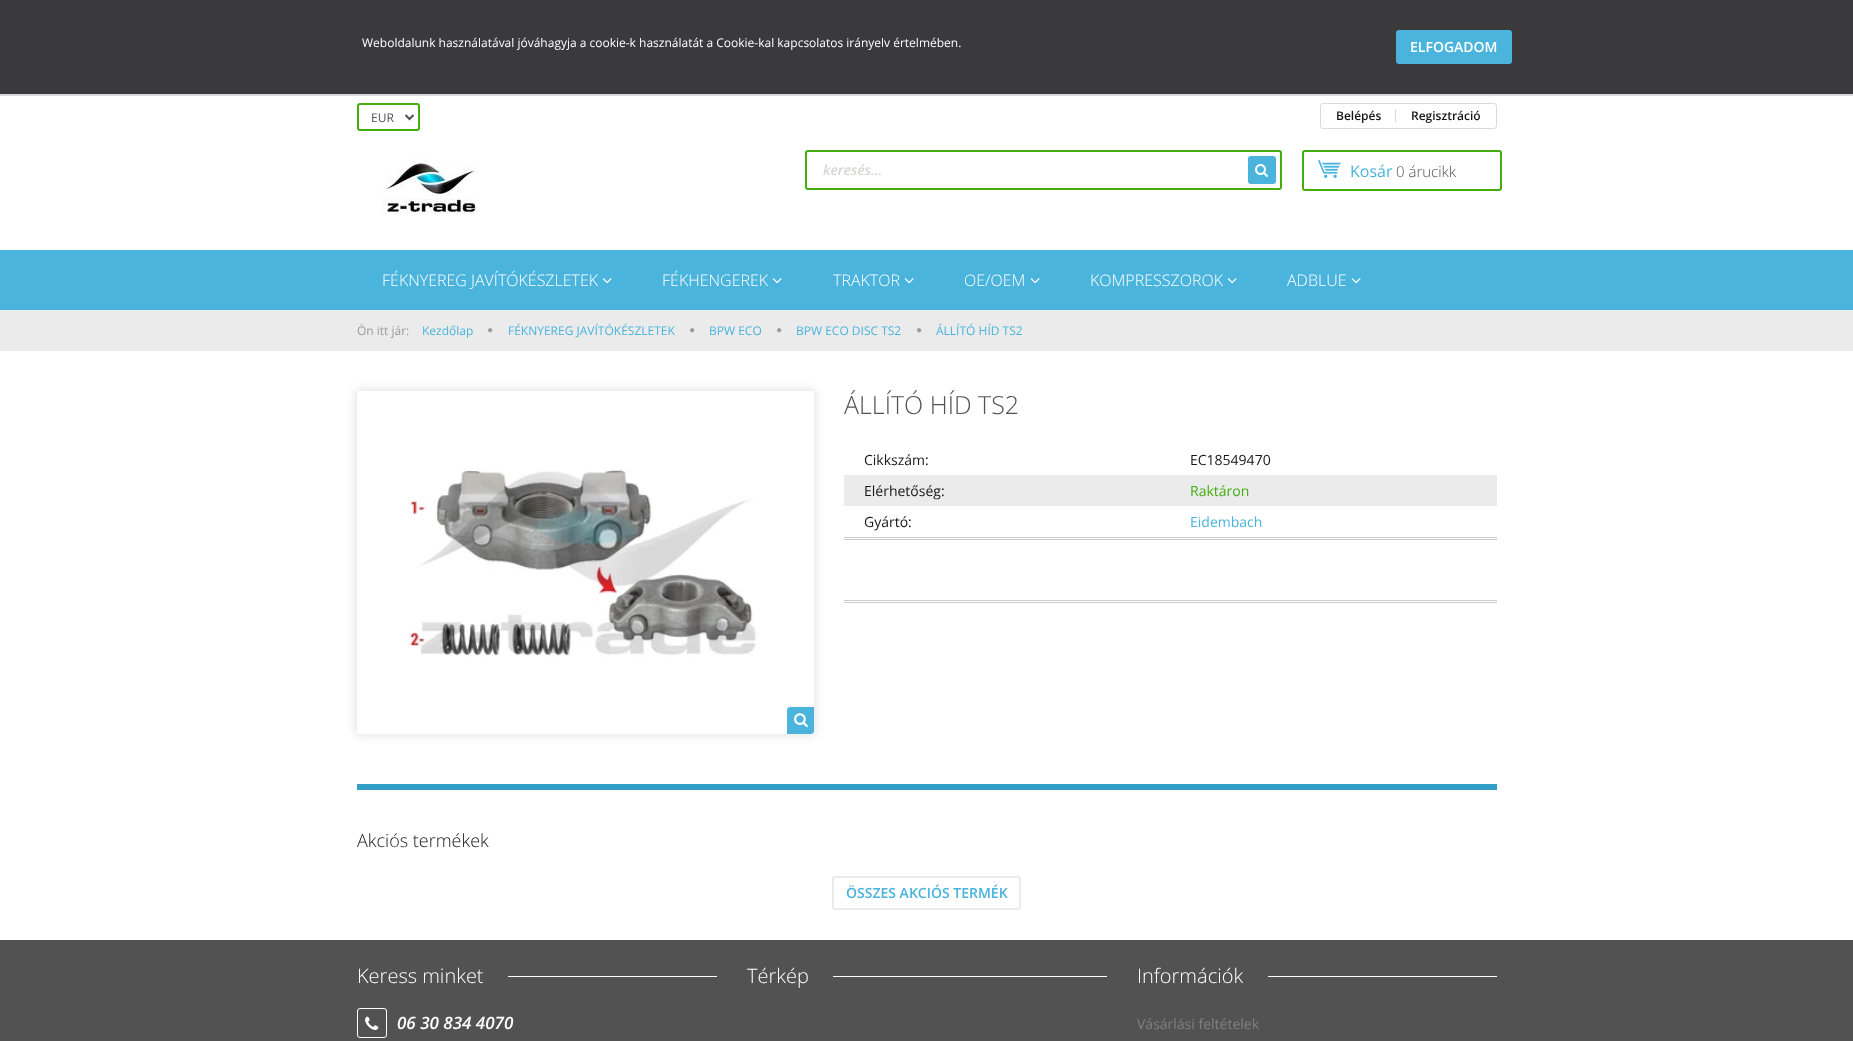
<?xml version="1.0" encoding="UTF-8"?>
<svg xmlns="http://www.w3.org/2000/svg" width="1853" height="1041">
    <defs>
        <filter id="blur1" x="-50%" y="-200%" width="200%" height="500%"><feGaussianBlur stdDeviation="4"/></filter>
    </defs>
    <rect width="100%" height="100%" fill="#FFFFFF"/>
    <rect x="0" y="0" width="1853" height="94" fill="#3A393B"/>
    <text x="362" y="47" font-family="Open Sans" font-size="12" fill="#FFFFFF">Weboldalunk használatával jóváhagyja a cookie-k használatát a Cookie-kal kapcsolatos irányelv értelmében.</text>
    <rect x="1397" y="31" width="114" height="32" rx="2" fill="#4AB4DD" stroke="#4AB4DD" stroke-width="2"/>
    <text x="1410" y="52" font-family="Open Sans" font-size="14" font-weight="600" fill="#FFFFFF">ELFOGADOM</text>
    <rect x="0" y="94" width="1853" height="2" fill="#D7D7D7"/>
    <rect x="358" y="104" width="61" height="26" rx="2" fill="none" stroke="#43AD0E" stroke-width="2"/>
    <path d="M 405.5 115 L 409.5 119 L 413.5 115" fill="none" stroke="#525252" stroke-width="2"/>
    <text x="371" y="122" font-family="Open Sans" font-size="12" fill="#525252">EUR</text>
    <rect x="1320.5" y="103.5" width="176" height="25" rx="2.5" fill="none" stroke="#DADADA"/>
    <text x="1336" y="120" font-family="Open Sans" font-size="12" font-weight="600" fill="#171717">Belépés</text>
    <rect x="1395" y="109" width="1" height="13" fill="#DADADA"/>
    <text x="1411" y="120" font-family="Open Sans" font-size="12" font-weight="600" fill="#171717">Regisztráció</text>
    <image x="381" y="158" width="96" height="56" href="img_01.png"/>
    <rect x="806" y="151" width="475" height="38" rx="2" fill="none" stroke="#43AD0E" stroke-width="2"/>
    <text x="823" y="175" font-family="Open Sans" font-size="14" font-weight="600" font-style="italic" fill="#D6D6D5">keresés...</text>
    <rect x="1248" y="156" width="28" height="28" rx="3" fill="#4AB4DD"/>
    <image x="1255" y="164" width="13" height="13" href="img_02.png"/>
    <rect x="1303" y="151" width="198" height="39" rx="2" fill="none" stroke="#43AD0E" stroke-width="2"/>
    <image x="1318" y="160" width="23" height="18" href="img_03.png"/>
    <text x="1350" y="177" font-family="Open Sans" font-size="16" fill="#4AB4DD">Kosár</text>
    <text x="1396" y="177" font-family="Open Sans" font-size="15" font-weight="300" fill="#525252">0 árucikk</text>
    <rect x="0" y="250" width="1853" height="60" fill="#4AB4DD"/>
    <text x="382" y="286" font-family="Open Sans" font-size="16" font-weight="300" fill="#FFFFFF">FÉKNYEREG JAVÍTÓKÉSZLETEK</text>
    <image x="602" y="278" width="10" height="6" href="img_04.png"/>
    <text x="662" y="286" font-family="Open Sans" font-size="16" font-weight="300" fill="#FFFFFF">FÉKHENGEREK</text>
    <image x="772" y="278" width="10" height="6" href="img_04.png"/>
    <text x="833" y="286" font-family="Open Sans" font-size="16" font-weight="300" fill="#FFFFFF">TRAKTOR</text>
    <image x="904" y="278" width="10" height="6" href="img_04.png"/>
    <text x="964" y="286" font-family="Open Sans" font-size="16" font-weight="300" fill="#FFFFFF">OE/OEM</text>
    <image x="1030" y="278" width="10" height="6" href="img_04.png"/>
    <text x="1090" y="286" font-family="Open Sans" font-size="16" font-weight="300" fill="#FFFFFF">KOMPRESSZOROK</text>
    <image x="1227" y="278" width="10" height="6" href="img_04.png"/>
    <text x="1287" y="286" font-family="Open Sans" font-size="16" font-weight="300" fill="#FFFFFF">ADBLUE</text>
    <image x="1351" y="278" width="10" height="6" href="img_04.png"/>
    <rect x="0" y="310" width="1853" height="41" fill="#EBEBEB"/>
    <text x="357" y="335" font-family="Open Sans" font-size="12" fill="#9B9C9C">Ön itt jár:</text>
    <text x="422" y="335" font-family="Open Sans" font-size="12" fill="#4AB4DD">Kezdőlap</text>
    <image x="488" y="328" width="5" height="5" href="img_05.png"/>
    <text x="508" y="335" font-family="Open Sans" font-size="12" fill="#4AB4DD">FÉKNYEREG JAVÍTÓKÉSZLETEK</text>
    <image x="690" y="328" width="5" height="5" href="img_05.png"/>
    <text x="709" y="335" font-family="Open Sans" font-size="12" fill="#4AB4DD">BPW ECO</text>
    <image x="777" y="328" width="5" height="5" href="img_05.png"/>
    <text x="796" y="335" font-family="Open Sans" font-size="12" fill="#4AB4DD">BPW ECO DISC TS2</text>
    <image x="917" y="328" width="5" height="5" href="img_05.png"/>
    <text x="936" y="335" font-family="Open Sans" font-size="12" fill="#4AB4DD">ÁLLÍTÓ HÍD TS2</text>
    <rect x="355" y="389" width="461" height="347" rx="5" fill="#000000" fill-opacity="0.1" filter="url(#blur1)"/>
    <image x="357" y="391" width="457" height="343" href="img_06.png"/>
    <path d="M 790 707 H 814 V 731 C 814 732.5 812.5 734 811 734 H 787 V 710 C 787 708.5 788.5 707 790 707 Z" fill="#4AB4DD"/>
    <image x="794" y="713" width="14" height="15" href="img_07.png"/>
    <text x="844" y="414" font-family="Open Sans" font-size="25" font-weight="300" fill="#525252">ÁLLÍTÓ HÍD TS2</text>
    <text x="864" y="465" font-family="Open Sans" font-size="14" fill="#171717">Cikkszám:</text>
    <text x="1190" y="465" font-family="Open Sans" font-size="14" fill="#171717">EC18549470</text>
    <rect x="844" y="475" width="653" height="31" fill="#EBEBEB"/>
    <text x="864" y="496" font-family="Open Sans" font-size="14" fill="#171717">Elérhetőség:</text>
    <text x="1190" y="496" font-family="Open Sans" font-size="14" fill="#43AD0E">Raktáron</text>
    <text x="864" y="527" font-family="Open Sans" font-size="14" fill="#171717">Gyártó:</text>
    <text x="1190" y="527" font-family="Open Sans" font-size="14" fill="#4AB4DD">Eidembach</text>
    <rect x="844" y="537" width="653" height="1" fill="#CCCCCC"/>
    <rect x="844" y="539" width="653" height="1" fill="#CCCCCC"/>
    <rect x="844" y="600" width="653" height="1" fill="#CCCCCC"/>
    <rect x="844" y="602" width="653" height="1" fill="#CCCCCC"/>
    <rect x="357" y="784" width="1140" height="6" fill="#309EC6"/>
    <text x="357" y="847" font-family="Open Sans" font-size="18" font-weight="300" fill="#171717">Akciós termékek</text>
    <rect x="833" y="877" width="187" height="32" rx="2" fill="none" stroke="#EBEBEB" stroke-width="2"/>
    <text x="846" y="898" font-family="Open Sans" font-size="14" font-weight="600" fill="#4AB4DD">ÖSSZES AKCIÓS TERMÉK</text>
    <rect x="0" y="940" width="1853" height="101" fill="#525252"/>
    <text x="357" y="983" font-family="Open Sans" font-size="20" font-weight="300" fill="#FFFFFF">Keress minket</text>
    <rect x="508" y="976" width="209" height="1" fill="#FFFFFF"/>
    <rect x="357.5" y="1008.5" width="29" height="29" rx="2.5" fill="none" stroke="#FFFFFF"/>
    <image x="365" y="1016" width="14" height="14" href="img_08.png"/>
    <text x="397" y="1029" font-family="Open Sans" font-size="17" font-weight="600" font-style="italic" fill="#FFFFFF">06 30 834 4070</text>
    <text x="747" y="983" font-family="Open Sans" font-size="20" font-weight="300" fill="#FFFFFF">Térkép</text>
    <rect x="833" y="976" width="274" height="1" fill="#FFFFFF"/>
    <text x="1137" y="983" font-family="Open Sans" font-size="20" font-weight="300" fill="#FFFFFF">Információk</text>
    <rect x="1268" y="976" width="229" height="1" fill="#FFFFFF"/>
    <text x="1137" y="1029" font-family="Open Sans" font-size="14" fill="#808080">Vásárlási feltételek</text>
</svg>
